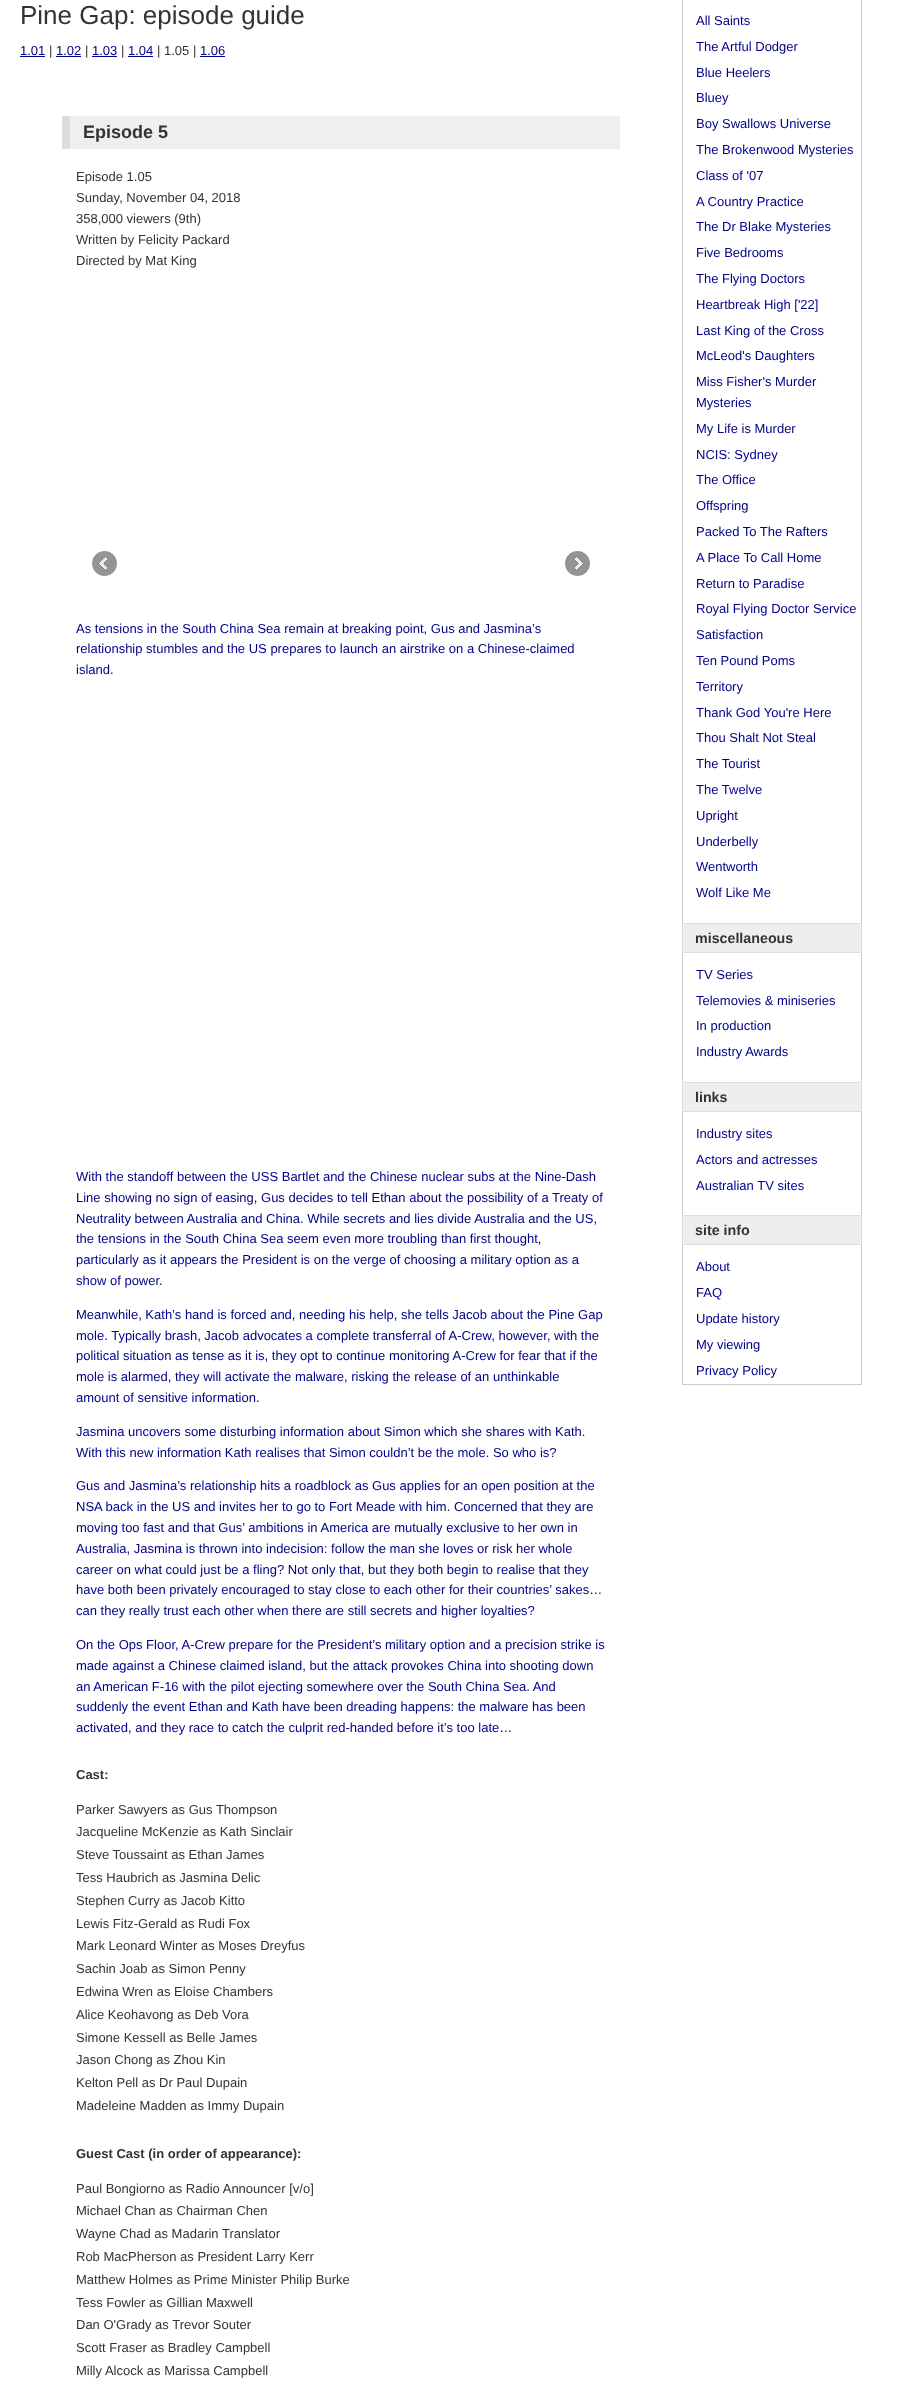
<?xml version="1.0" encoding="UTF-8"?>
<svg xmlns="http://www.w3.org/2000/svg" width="913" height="2392">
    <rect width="100%" height="100%" fill="#FFFFFF"/>
    <text x="20" y="24" font-family="Liberation Sans" font-size="26" fill="#333333">Pine Gap: episode guide</text>
    <text x="20" y="55" font-family="Liberation Sans" font-size="13" fill="#000088">1.01</text>
    <rect x="20" y="56" width="25" height="1" fill="#000088"/>
    <text x="49" y="55" font-family="Liberation Sans" font-size="13" fill="#333333">|</text>
    <text x="56" y="55" font-family="Liberation Sans" font-size="13" fill="#000088">1.02</text>
    <rect x="56" y="56" width="25" height="1" fill="#000088"/>
    <text x="85" y="55" font-family="Liberation Sans" font-size="13" fill="#333333">|</text>
    <text x="92" y="55" font-family="Liberation Sans" font-size="13" fill="#000088">1.03</text>
    <rect x="92" y="56" width="25" height="1" fill="#000088"/>
    <text x="121" y="55" font-family="Liberation Sans" font-size="13" fill="#333333">|</text>
    <text x="128" y="55" font-family="Liberation Sans" font-size="13" fill="#000088">1.04</text>
    <rect x="128" y="56" width="25" height="1" fill="#000088"/>
    <text x="157" y="55" font-family="Liberation Sans" font-size="13" fill="#333333">| 1.05 |</text>
    <text x="200" y="55" font-family="Liberation Sans" font-size="13" fill="#000088">1.06</text>
    <rect x="200" y="56" width="25" height="1" fill="#000088"/>
    <rect x="70" y="116" width="550" height="33" fill="#EFEFEF"/>
    <rect x="62" y="116" width="8" height="33" fill="#DDDDDD"/>
    <text x="83" y="138" font-family="Liberation Sans" font-size="18" font-weight="700" fill="#333333">Episode 5</text>
    <text font-family="Liberation Sans" font-size="13" fill="#333333">
        <tspan x="76" y="181">Episode 1.05</tspan>
        <tspan x="76" y="202">Sunday, November 04, 2018</tspan>
        <tspan x="76" y="223">358,000 viewers (9th)</tspan>
        <tspan x="76" y="244">Written by Felicity Packard</tspan>
        <tspan x="76" y="265">Directed by Mat King</tspan>
    </text>
    <image x="92" y="551" width="25" height="25" href="img_01.png"/>
    <image x="565" y="551" width="25" height="25" href="img_02.png"/>
    <text font-family="Liberation Sans" font-size="13" fill="#000088">
        <tspan x="76" y="633">As tensions in the South China Sea remain at breaking point, Gus and Jasmina’s</tspan>
        <tspan x="76" y="653">relationship stumbles and the US prepares to launch an airstrike on a Chinese-claimed</tspan>
        <tspan x="76" y="674">island.</tspan>
    </text>
    <text font-family="Liberation Sans" font-size="13" fill="#000088">
        <tspan x="76" y="1181">With the standoff between the USS Bartlet and the Chinese nuclear subs at the Nine-Dash</tspan>
        <tspan x="76" y="1202">Line showing no sign of easing, Gus decides to tell Ethan about the possibility of a Treaty of</tspan>
        <tspan x="76" y="1223">Neutrality between Australia and China. While secrets and lies divide Australia and the US,</tspan>
        <tspan x="76" y="1243">the tensions in the South China Sea seem even more troubling than first thought,</tspan>
        <tspan x="76" y="1264">particularly as it appears the President is on the verge of choosing a military option as a</tspan>
        <tspan x="76" y="1285">show of power.</tspan>
    </text>
    <text font-family="Liberation Sans" font-size="13" fill="#000088">
        <tspan x="76" y="1319">Meanwhile, Kath’s hand is forced and, needing his help, she tells Jacob about the Pine Gap</tspan>
        <tspan x="76" y="1340">mole. Typically brash, Jacob advocates a complete transferral of A-Crew, however, with the</tspan>
        <tspan x="76" y="1360">political situation as tense as it is, they opt to continue monitoring A-Crew for fear that if the</tspan>
        <tspan x="76" y="1381">mole is alarmed, they will activate the malware, risking the release of an unthinkable</tspan>
        <tspan x="76" y="1402">amount of sensitive information.</tspan>
    </text>
    <text font-family="Liberation Sans" font-size="13" fill="#000088">
        <tspan x="76" y="1436">Jasmina uncovers some disturbing information about Simon which she shares with Kath.</tspan>
        <tspan x="76" y="1457">With this new information Kath realises that Simon couldn’t be the mole. So who is?</tspan>
    </text>
    <text font-family="Liberation Sans" font-size="13" fill="#000088">
        <tspan x="76" y="1490">Gus and Jasmina’s relationship hits a roadblock as Gus applies for an open position at the</tspan>
        <tspan x="76" y="1511">NSA back in the US and invites her to go to Fort Meade with him. Concerned that they are</tspan>
        <tspan x="76" y="1532">moving too fast and that Gus’ ambitions in America are mutually exclusive to her own in</tspan>
        <tspan x="76" y="1553">Australia, Jasmina is thrown into indecision: follow the man she loves or risk her whole</tspan>
        <tspan x="76" y="1574">career on what could just be a fling? Not only that, but they both begin to realise that they</tspan>
        <tspan x="76" y="1594">have both been privately encouraged to stay close to each other for their countries’ sakes…</tspan>
        <tspan x="76" y="1615">can they really trust each other when there are still secrets and higher loyalties?</tspan>
    </text>
    <text font-family="Liberation Sans" font-size="13" fill="#000088">
        <tspan x="76" y="1649">On the Ops Floor, A-Crew prepare for the President’s military option and a precision strike is</tspan>
        <tspan x="76" y="1670">made against a Chinese claimed island, but the attack provokes China into shooting down</tspan>
        <tspan x="76" y="1691">an American F-16 with the pilot ejecting somewhere over the South China Sea. And</tspan>
        <tspan x="76" y="1711">suddenly the event Ethan and Kath have been dreading happens: the malware has been</tspan>
        <tspan x="76" y="1732">activated, and they race to catch the culprit red-handed before it’s too late…</tspan>
    </text>
    <text x="76" y="1779" font-family="Liberation Sans" font-size="13" font-weight="700" fill="#333333">Cast:</text>
    <text font-family="Liberation Sans" font-size="13" fill="#333333">
        <tspan x="76" y="1814">Parker Sawyers as Gus Thompson</tspan>
        <tspan x="76" y="1836">Jacqueline McKenzie as Kath Sinclair</tspan>
        <tspan x="76" y="1859">Steve Toussaint as Ethan James</tspan>
        <tspan x="76" y="1882">Tess Haubrich as Jasmina Delic</tspan>
        <tspan x="76" y="1905">Stephen Curry as Jacob Kitto</tspan>
        <tspan x="76" y="1928">Lewis Fitz-Gerald as Rudi Fox</tspan>
        <tspan x="76" y="1950">Mark Leonard Winter as Moses Dreyfus</tspan>
        <tspan x="76" y="1973">Sachin Joab as Simon Penny</tspan>
        <tspan x="76" y="1996">Edwina Wren as Eloise Chambers</tspan>
        <tspan x="76" y="2019">Alice Keohavong as Deb Vora</tspan>
        <tspan x="76" y="2042">Simone Kessell as Belle James</tspan>
        <tspan x="76" y="2064">Jason Chong as Zhou Kin</tspan>
        <tspan x="76" y="2087">Kelton Pell as Dr Paul Dupain</tspan>
        <tspan x="76" y="2110">Madeleine Madden as Immy Dupain</tspan>
    </text>
    <text x="76" y="2158" font-family="Liberation Sans" font-size="13" font-weight="700" fill="#333333">Guest Cast (in order of appearance):</text>
    <text font-family="Liberation Sans" font-size="13" fill="#333333">
        <tspan x="76" y="2193">Paul Bongiorno as Radio Announcer [v/o]</tspan>
        <tspan x="76" y="2215">Michael Chan as Chairman Chen</tspan>
        <tspan x="76" y="2238">Wayne Chad as Madarin Translator</tspan>
        <tspan x="76" y="2261">Rob MacPherson as President Larry Kerr</tspan>
        <tspan x="76" y="2284">Matthew Holmes as Prime Minister Philip Burke</tspan>
        <tspan x="76" y="2307">Tess Fowler as Gillian Maxwell</tspan>
        <tspan x="76" y="2329">Dan O'Grady as Trevor Souter</tspan>
        <tspan x="76" y="2352">Scott Fraser as Bradley Campbell</tspan>
        <tspan x="76" y="2375">Milly Alcock as Marissa Campbell</tspan>
    </text>
    <rect x="682.5" y="-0.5" width="179" height="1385" fill="none" stroke="#CCCCCC"/>
    <text x="696" y="25" font-family="Liberation Sans" font-size="13" fill="#000088">All Saints</text>
    <text x="696" y="51" font-family="Liberation Sans" font-size="13" fill="#000088">The Artful Dodger</text>
    <text font-family="Liberation Sans" font-size="13" fill="#000088">
        <tspan x="696" y="77">Blue Heelers</tspan>
        <tspan x="696" y="102">Bluey</tspan>
    </text>
    <text x="696" y="128" font-family="Liberation Sans" font-size="13" fill="#000088">Boy Swallows Universe</text>
    <text x="696" y="154" font-family="Liberation Sans" font-size="13" fill="#000088">The Brokenwood Mysteries</text>
    <text x="696" y="180" font-family="Liberation Sans" font-size="13" fill="#000088">Class of '07</text>
    <text font-family="Liberation Sans" font-size="13" fill="#000088">
        <tspan x="696" y="206">A Country Practice</tspan>
        <tspan x="696" y="231">The Dr Blake Mysteries</tspan>
    </text>
    <text x="696" y="257" font-family="Liberation Sans" font-size="13" fill="#000088">Five Bedrooms</text>
    <text x="696" y="283" font-family="Liberation Sans" font-size="13" fill="#000088">The Flying Doctors</text>
    <text x="696" y="309" font-family="Liberation Sans" font-size="13" fill="#000088">Heartbreak High ['22]</text>
    <text font-family="Liberation Sans" font-size="13" fill="#000088">
        <tspan x="696" y="335">Last King of the Cross</tspan>
        <tspan x="696" y="360">McLeod's Daughters</tspan>
    </text>
    <text font-family="Liberation Sans" font-size="13" fill="#000088">
        <tspan x="696" y="386">Miss Fisher's Murder</tspan>
        <tspan x="696" y="407">Mysteries</tspan>
    </text>
    <text x="696" y="433" font-family="Liberation Sans" font-size="13" fill="#000088">My Life is Murder</text>
    <text font-family="Liberation Sans" font-size="13" fill="#000088">
        <tspan x="696" y="459">NCIS: Sydney</tspan>
        <tspan x="696" y="484">The Office</tspan>
    </text>
    <text x="696" y="510" font-family="Liberation Sans" font-size="13" fill="#000088">Offspring</text>
    <text x="696" y="536" font-family="Liberation Sans" font-size="13" fill="#000088">Packed To The Rafters</text>
    <text x="696" y="562" font-family="Liberation Sans" font-size="13" fill="#000088">A Place To Call Home</text>
    <text font-family="Liberation Sans" font-size="13" fill="#000088">
        <tspan x="696" y="588">Return to Paradise</tspan>
        <tspan x="696" y="613">Royal Flying Doctor Service</tspan>
    </text>
    <text x="696" y="639" font-family="Liberation Sans" font-size="13" fill="#000088">Satisfaction</text>
    <text x="696" y="665" font-family="Liberation Sans" font-size="13" fill="#000088">Ten Pound Poms</text>
    <text x="696" y="691" font-family="Liberation Sans" font-size="13" fill="#000088">Territory</text>
    <text font-family="Liberation Sans" font-size="13" fill="#000088">
        <tspan x="696" y="717">Thank God You're Here</tspan>
        <tspan x="696" y="742">Thou Shalt Not Steal</tspan>
    </text>
    <text x="696" y="768" font-family="Liberation Sans" font-size="13" fill="#000088">The Tourist</text>
    <text x="696" y="794" font-family="Liberation Sans" font-size="13" fill="#000088">The Twelve</text>
    <text x="696" y="820" font-family="Liberation Sans" font-size="13" fill="#000088">Upright</text>
    <text font-family="Liberation Sans" font-size="13" fill="#000088">
        <tspan x="696" y="846">Underbelly</tspan>
        <tspan x="696" y="871">Wentworth</tspan>
    </text>
    <text x="696" y="897" font-family="Liberation Sans" font-size="13" fill="#000088">Wolf Like Me</text>
    <rect x="682.5" y="923.5" width="179" height="29" fill="#EEEEEE" stroke="#DDDDDD"/>
    <text x="695" y="943" font-family="Liberation Sans" font-size="14.25" font-weight="700" fill="#333333">miscellaneous</text>
    <text x="696" y="979" font-family="Liberation Sans" font-size="13" fill="#000088">TV Series</text>
    <text font-family="Liberation Sans" font-size="13" fill="#000088">
        <tspan x="696" y="1005">Telemovies &amp; miniseries</tspan>
        <tspan x="696" y="1030">In production</tspan>
    </text>
    <text x="696" y="1056" font-family="Liberation Sans" font-size="13" fill="#000088">Industry Awards</text>
    <rect x="682.5" y="1082.5" width="179" height="29" fill="#EEEEEE" stroke="#DDDDDD"/>
    <text x="695" y="1102" font-family="Liberation Sans" font-size="14.25" font-weight="700" fill="#333333">links</text>
    <text x="696" y="1138" font-family="Liberation Sans" font-size="13" fill="#000088">Industry sites</text>
    <text x="696" y="1164" font-family="Liberation Sans" font-size="13" fill="#000088">Actors and actresses</text>
    <text x="696" y="1190" font-family="Liberation Sans" font-size="13" fill="#000088">Australian TV sites</text>
    <rect x="682.5" y="1215.5" width="179" height="29" fill="#EEEEEE" stroke="#DDDDDD"/>
    <text x="695" y="1235" font-family="Liberation Sans" font-size="14.25" font-weight="700" fill="#333333">site info</text>
    <text x="696" y="1271" font-family="Liberation Sans" font-size="13" fill="#000088">About</text>
    <text x="696" y="1297" font-family="Liberation Sans" font-size="13" fill="#000088">FAQ</text>
    <text x="696" y="1323" font-family="Liberation Sans" font-size="13" fill="#000088">Update history</text>
    <text x="696" y="1349" font-family="Liberation Sans" font-size="13" fill="#000088">My viewing</text>
    <text x="696" y="1375" font-family="Liberation Sans" font-size="13" fill="#000088">Privacy Policy</text>
</svg>
